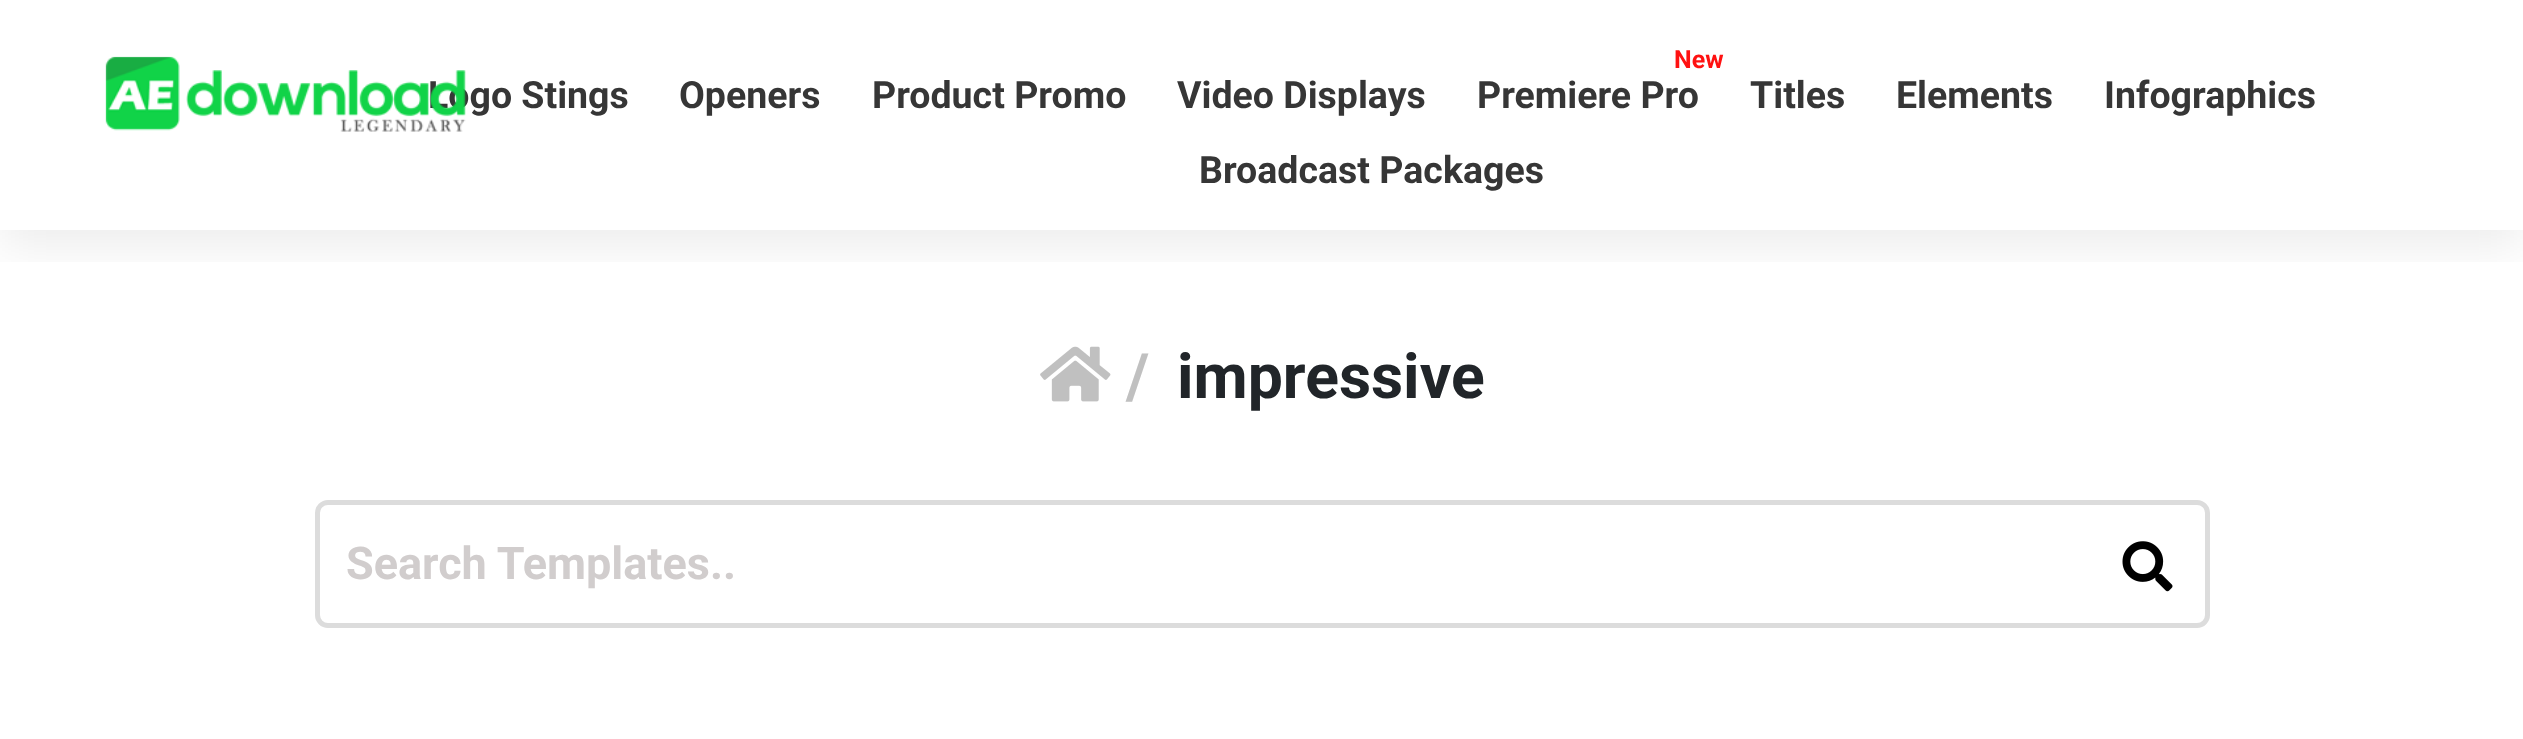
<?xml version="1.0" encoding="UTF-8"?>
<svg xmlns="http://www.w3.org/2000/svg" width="2523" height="739">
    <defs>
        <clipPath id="clip1"><rect x="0" y="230" width="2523" height="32"/></clipPath>
        <filter id="blur1" x="-50%" y="-200%" width="200%" height="500%"><feGaussianBlur stdDeviation="25"/></filter>
    </defs>
    <rect width="100%" height="100%" fill="#FFFFFF"/>
    <g clip-path="url(#clip1)">
        <rect x="0" y="15" width="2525" height="230" fill="#000000" fill-opacity="0.08" filter="url(#blur1)"/>
    </g>
    <text x="428" y="108" font-family="Roboto" font-size="37.5" font-weight="700" fill="#363636">Logo Stings</text>
    <image x="105" y="56" width="361" height="76" href="img_01.png"/>
    <text x="679" y="108" font-family="Roboto" font-size="37.5" font-weight="700" fill="#363636">Openers</text>
    <text x="872" y="108" font-family="Roboto" font-size="37.5" font-weight="700" fill="#363636">Product Promo</text>
    <text x="1177" y="108" font-family="Roboto" font-size="37.5" font-weight="700" fill="#363636">Video Displays</text>
    <text x="1674" y="68" font-family="Roboto" font-size="25" font-weight="700" fill="#FF1111">New</text>
    <text x="1477" y="108" font-family="Roboto" font-size="37.5" font-weight="700" fill="#363636">Premiere Pro</text>
    <text x="1750" y="108" font-family="Roboto" font-size="37.5" font-weight="700" fill="#363636">Titles</text>
    <text x="1896" y="108" font-family="Roboto" font-size="37.5" font-weight="700" fill="#363636">Elements</text>
    <text x="2104" y="108" font-family="Roboto" font-size="37.5" font-weight="700" fill="#363636">Infographics</text>
    <text x="1199" y="183" font-family="Roboto" font-size="37.5" font-weight="700" fill="#363636">Broadcast Packages</text>
    <image x="1040" y="346" width="71" height="56" href="img_02.png"/>
    <text x="1126" y="398" font-family="Roboto" font-size="62.5" font-weight="700" fill="#C0C0C0">/</text>
    <text x="1177" y="398" font-family="Roboto" font-size="62.5" font-weight="700" fill="#212529">impressive</text>
    <rect x="317.5" y="502.5" width="1890" height="123" rx="10.5" fill="none" stroke="#DCDCDC" stroke-width="5"/>
    <text x="346" y="579" font-family="Roboto" font-size="45" font-weight="700" fill="#D1CDCD">Search Templates..</text>
    <image x="2122" y="541" width="51" height="51" href="img_03.png"/>
</svg>
